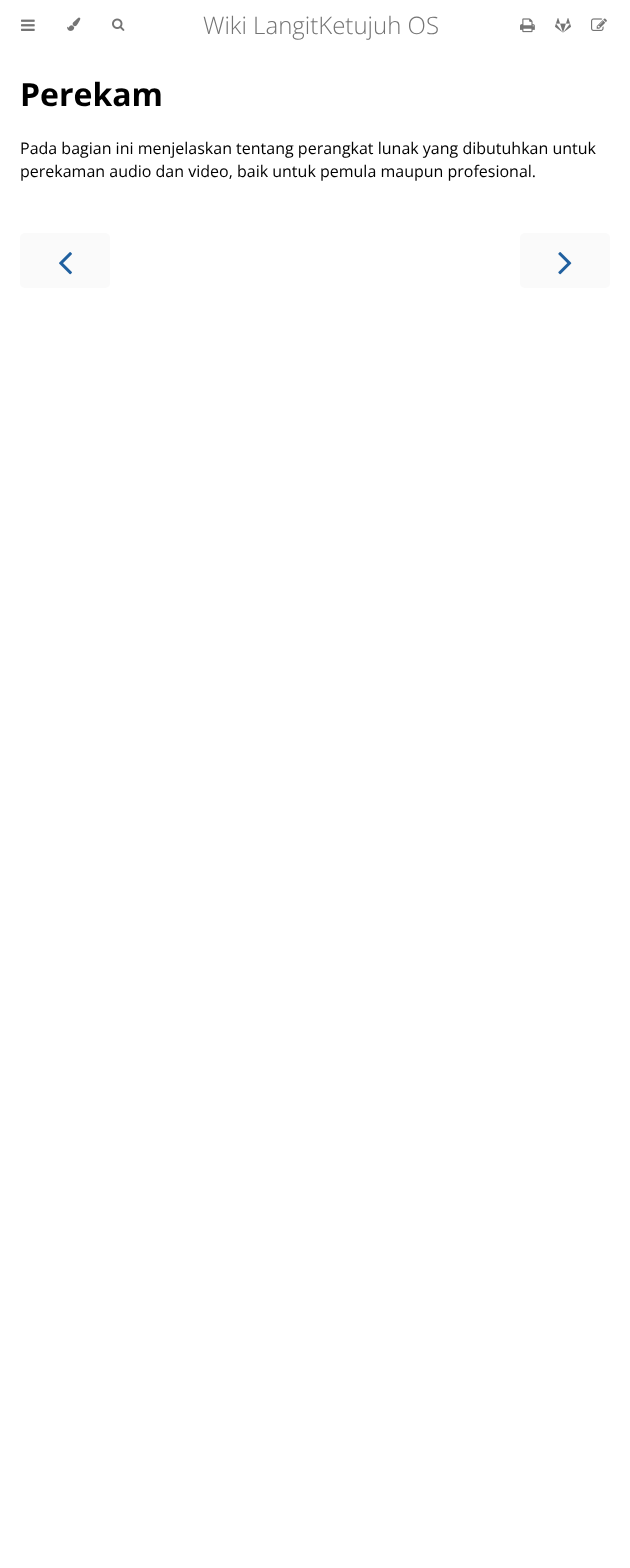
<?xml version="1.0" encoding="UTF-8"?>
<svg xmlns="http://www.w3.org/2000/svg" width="630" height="1568">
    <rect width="100%" height="100%" fill="#FFFFFF"/>
    <image x="21" y="19" width="14" height="12" href="img_01.png"/>
    <image x="67" y="17" width="14" height="14" href="img_02.png"/>
    <image x="112" y="18" width="13" height="13" href="img_03.png"/>
    <text x="203" y="34" font-family="Open Sans" font-size="24" font-weight="300" fill="#747474">Wiki LangitKetujuh OS</text>
    <image x="520" y="18" width="15" height="15" href="img_04.png"/>
    <image x="555" y="18" width="16" height="15" href="img_05.png"/>
    <image x="591" y="18" width="16" height="13" href="img_06.png"/>
    <text x="20" y="106" font-family="Open Sans" font-size="32" font-weight="700" fill="#000000">Perekam</text>
    <text font-family="Open Sans" font-size="16" fill="#000000">
        <tspan x="20" y="154">Pada bagian ini menjelaskan tentang perangkat lunak yang dibutuhkan untuk</tspan>
        <tspan x="20" y="177">perekaman audio dan video, baik untuk pemula maupun profesional.</tspan>
    </text>
    <rect x="20" y="233" width="90" height="55" rx="5" fill="#FAFAFA"/>
    <image x="59" y="252" width="13" height="23" href="img_07.png"/>
    <rect x="520" y="233" width="90" height="55" rx="5" fill="#FAFAFA"/>
    <image x="558" y="252" width="14" height="23" href="img_08.png"/>
</svg>
